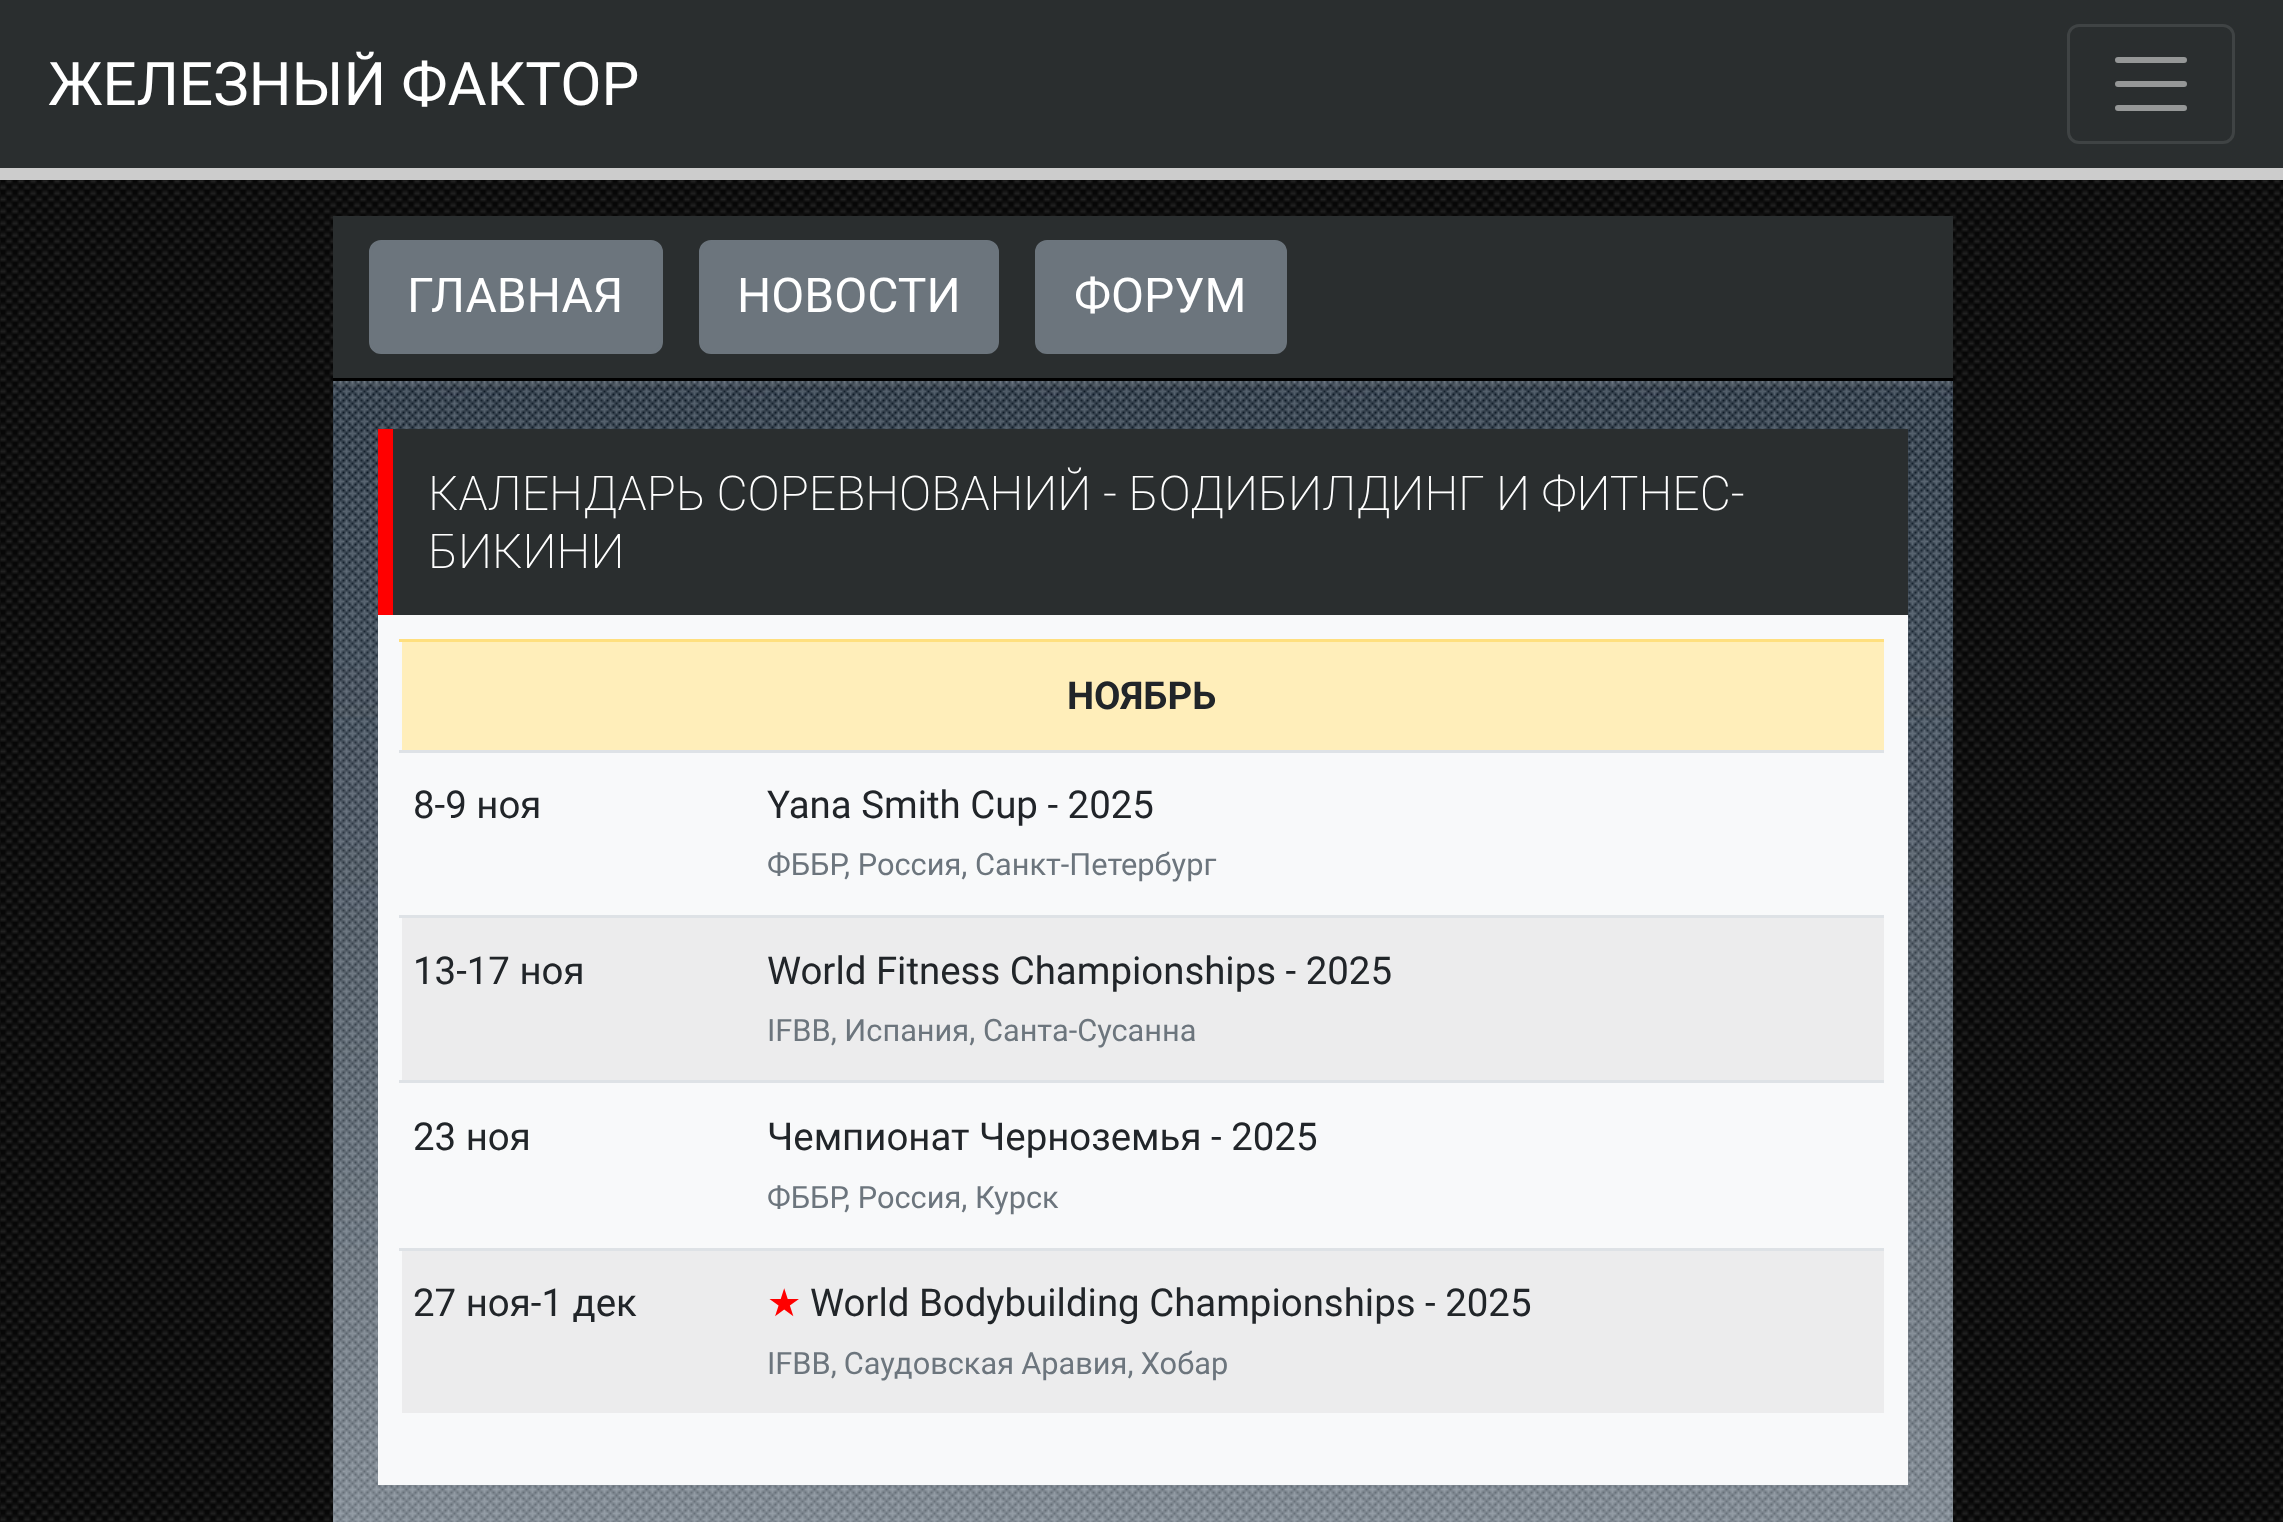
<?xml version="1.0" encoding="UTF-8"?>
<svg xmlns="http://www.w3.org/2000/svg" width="2283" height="1522">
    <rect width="100%" height="100%" fill="#FFFFFF"/>
    <image x="0" y="180" width="2283" height="1342" href="img_01.png"/>
    <rect x="0" y="0" width="2283" height="168" fill="#2A2E2F"/>
    <rect x="0" y="168" width="2283" height="12" fill="#CCCCCC"/>
    <text x="48" y="105" font-family="Roboto" font-size="60" fill="#FFFFFF">ЖЕЛЕЗНЫЙ ФАКТОР</text>
    <rect x="2068.5" y="25.5" width="165" height="117" rx="10.5" fill="none" stroke="#3F4344" stroke-width="3"/>
    <path d="M 2118 60 H 2184 M 2118 84 H 2184 M 2118 108 H 2184" fill="none" stroke="#959797" stroke-width="6" stroke-linecap="round"/>
    <rect x="333" y="216" width="1620" height="162" fill="#2A2E2F"/>
    <rect x="370.5" y="241.5" width="291" height="111" rx="10.5" fill="#6C757D" stroke="#6C757D" stroke-width="3"/>
    <text x="407" y="312" font-family="Roboto" font-size="48" fill="#FFFFFF">ГЛАВНАЯ</text>
    <rect x="700.5" y="241.5" width="297" height="111" rx="10.5" fill="#6C757D" stroke="#6C757D" stroke-width="3"/>
    <text x="737" y="312" font-family="Roboto" font-size="48" fill="#FFFFFF">НОВОСТИ</text>
    <rect x="1036.5" y="241.5" width="249" height="111" rx="10.5" fill="#6C757D" stroke="#6C757D" stroke-width="3"/>
    <text x="1074" y="312" font-family="Roboto" font-size="48" fill="#FFFFFF">ФОРУМ</text>
    <rect x="333" y="378" width="1620" height="3" fill="#000000"/>
    <image x="333" y="381" width="1620" height="1141" href="img_02.png"/>
    <rect x="393" y="429" width="1515" height="186" fill="#2A2E2F"/>
    <rect x="378" y="429" width="15" height="186" fill="#FF0000"/>
    <text font-family="Roboto" font-size="48" font-weight="200" fill="#FFFFFF">
        <tspan x="428" y="510">КАЛЕНДАРЬ СОРЕВНОВАНИЙ - БОДИБИЛДИНГ И ФИТНЕС-</tspan>
        <tspan x="428" y="568">БИКИНИ</tspan>
    </text>
    <rect x="378" y="615" width="1530" height="870" fill="#F8F9FA"/>
    <rect x="402" y="642" width="1482" height="108" fill="#FFEEBA"/>
    <rect x="399" y="639" width="1485" height="3" fill="#FFDF7E"/>
    <text x="1067" y="709" font-family="Roboto" font-size="38.4" font-weight="700" fill="#212529">НОЯБРЬ</text>
    <text x="413" y="818" font-family="Roboto" font-size="38.4" fill="#212529">8-9 ноя</text>
    <rect x="399" y="750" width="1485" height="3" fill="#DEE2E6"/>
    <text x="767" y="818" font-family="Roboto" font-size="38.4" fill="#212529">Yana Smith Cup - 2025</text>
    <text x="767" y="875" font-family="Roboto" font-size="30.75" fill="#6C757D">ФББР, Россия, Санкт-Петербург</text>
    <rect x="402" y="918" width="1482" height="162" fill="#ECECED"/>
    <text x="413" y="984" font-family="Roboto" font-size="38.4" fill="#212529">13-17 ноя</text>
    <rect x="399" y="915" width="1485" height="3" fill="#DEE2E6"/>
    <text x="767" y="984" font-family="Roboto" font-size="38.4" fill="#212529">World Fitness Championships - 2025</text>
    <text x="767" y="1041" font-family="Roboto" font-size="30.75" fill="#6C757D">IFBB, Испания, Санта-Сусанна</text>
    <text x="413" y="1150" font-family="Roboto" font-size="38.4" fill="#212529">23 ноя</text>
    <rect x="399" y="1080" width="1485" height="3" fill="#DEE2E6"/>
    <text x="767" y="1150" font-family="Roboto" font-size="38.4" fill="#212529">Чемпионат Черноземья - 2025</text>
    <text x="767" y="1208" font-family="Roboto" font-size="30.75" fill="#6C757D">ФББР, Россия, Курск</text>
    <rect x="402" y="1251" width="1482" height="162" fill="#ECECED"/>
    <text x="413" y="1316" font-family="Roboto" font-size="38.4" fill="#212529">27 ноя-1 дек</text>
    <rect x="399" y="1248" width="1485" height="3" fill="#DEE2E6"/>
    <text x="767" y="1316" font-family="DejaVu Sans" font-size="38.4" fill="#FF0000">★</text>
    <text x="810" y="1316" font-family="Roboto" font-size="38.4" fill="#212529">World Bodybuilding Championships - 2025</text>
    <text x="767" y="1374" word-spacing="-0.5" font-family="Roboto" font-size="30.75" fill="#6C757D">IFBB, Саудовская Аравия, Хобар</text>
</svg>
